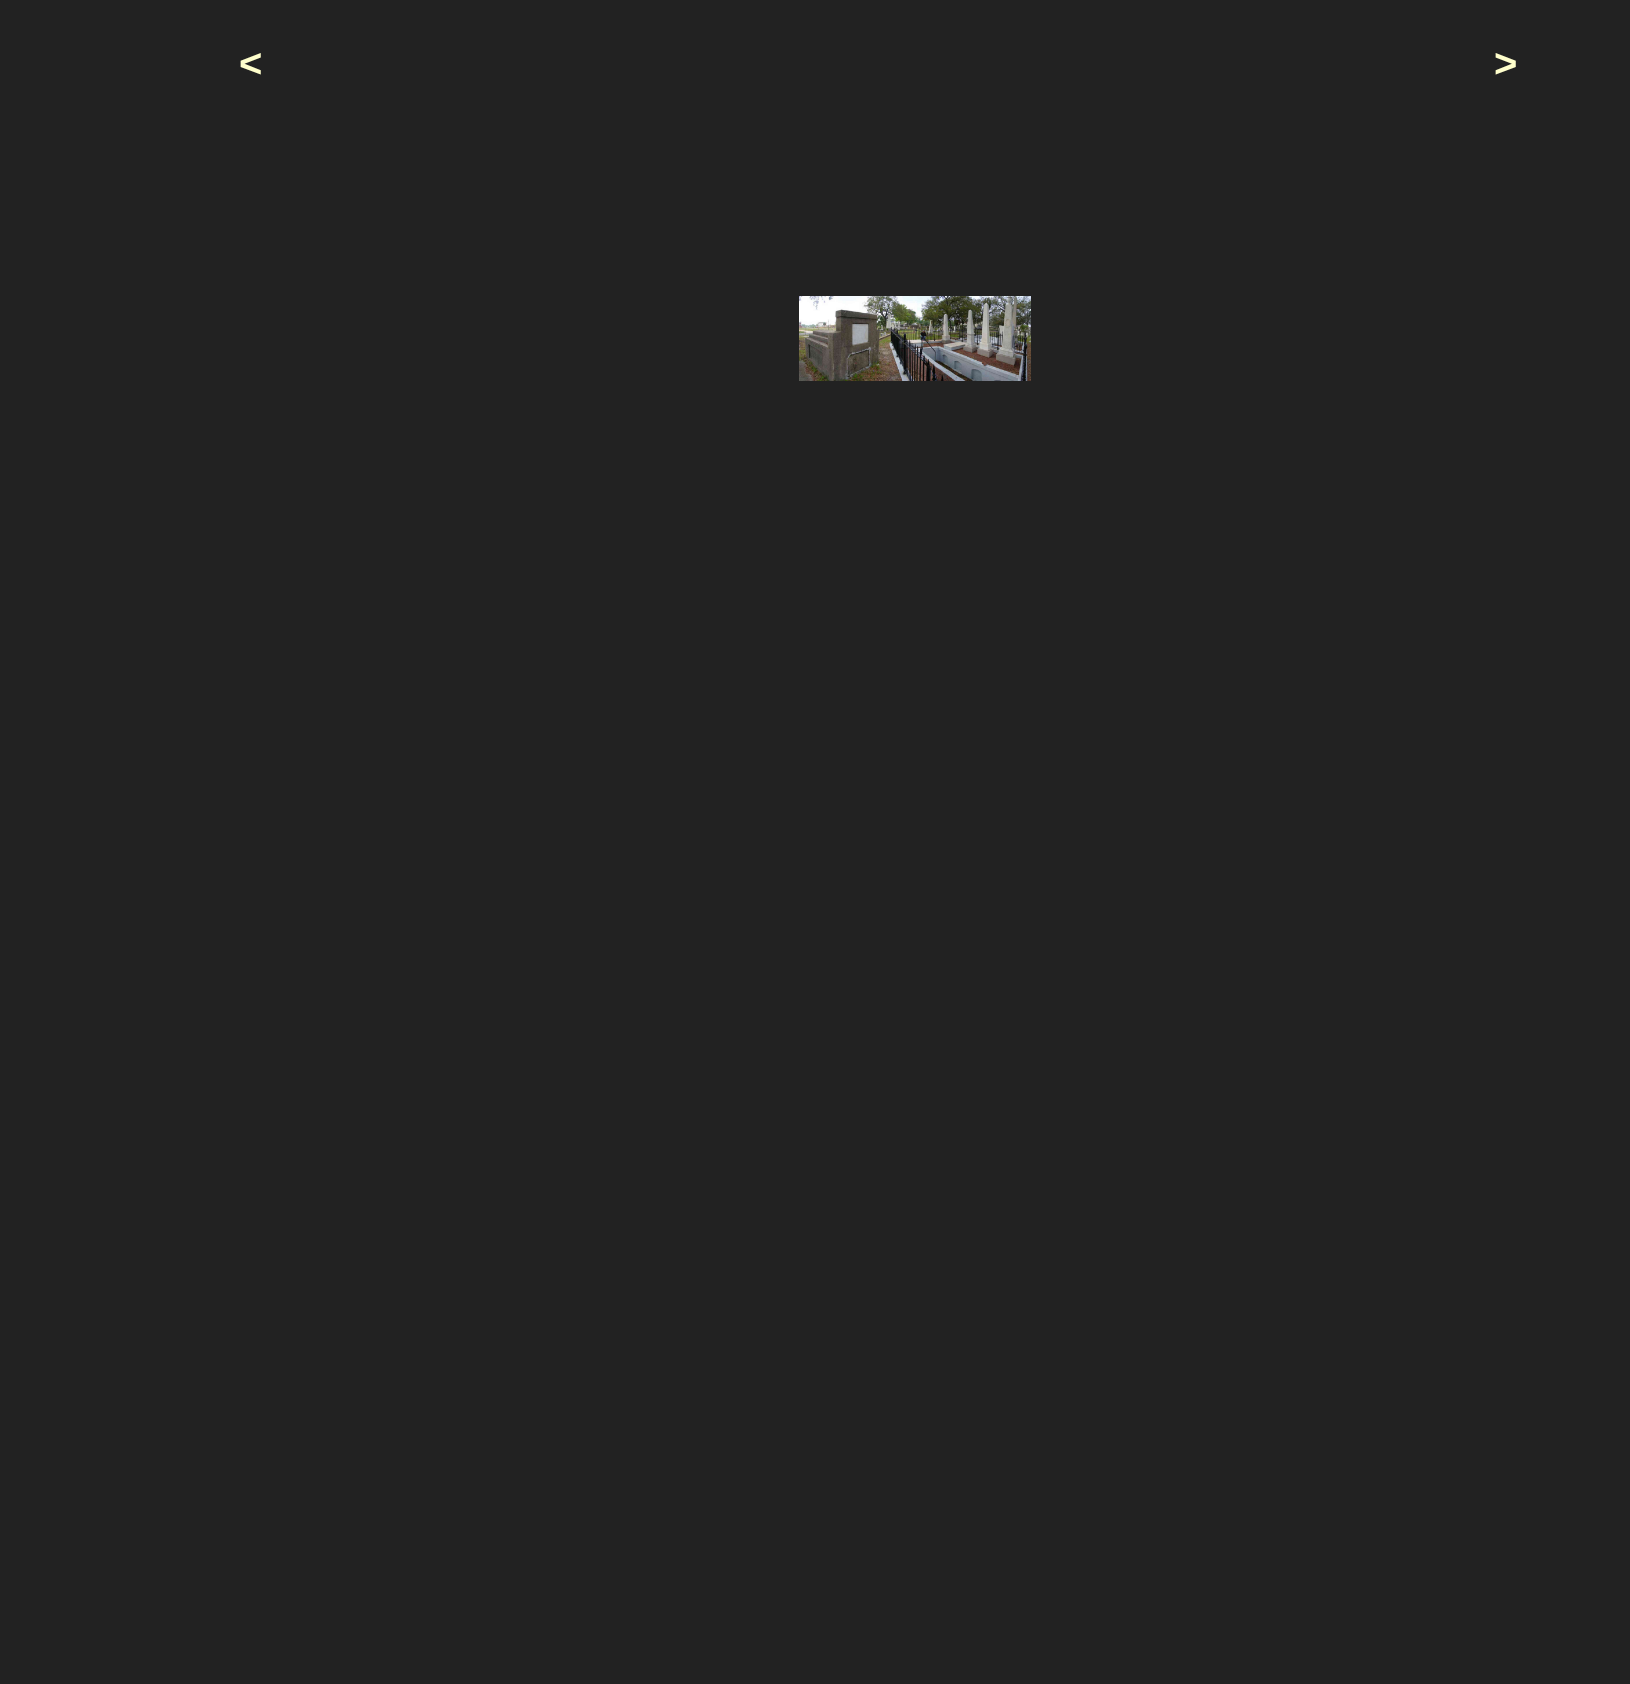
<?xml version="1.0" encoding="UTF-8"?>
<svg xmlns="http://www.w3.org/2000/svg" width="1630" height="1684">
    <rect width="100%" height="100%" fill="#222222"/>
    <text x="239" y="77" font-family="Liberation Sans" font-size="40" font-weight="700" fill="#FFFFCC">&lt;</text>
    <text x="1494" y="77" font-family="Liberation Sans" font-size="40" font-weight="700" fill="#FFFFCC">&gt;</text>
    <image x="799" y="296" width="232" height="85" href="img_01.png"/>
</svg>
